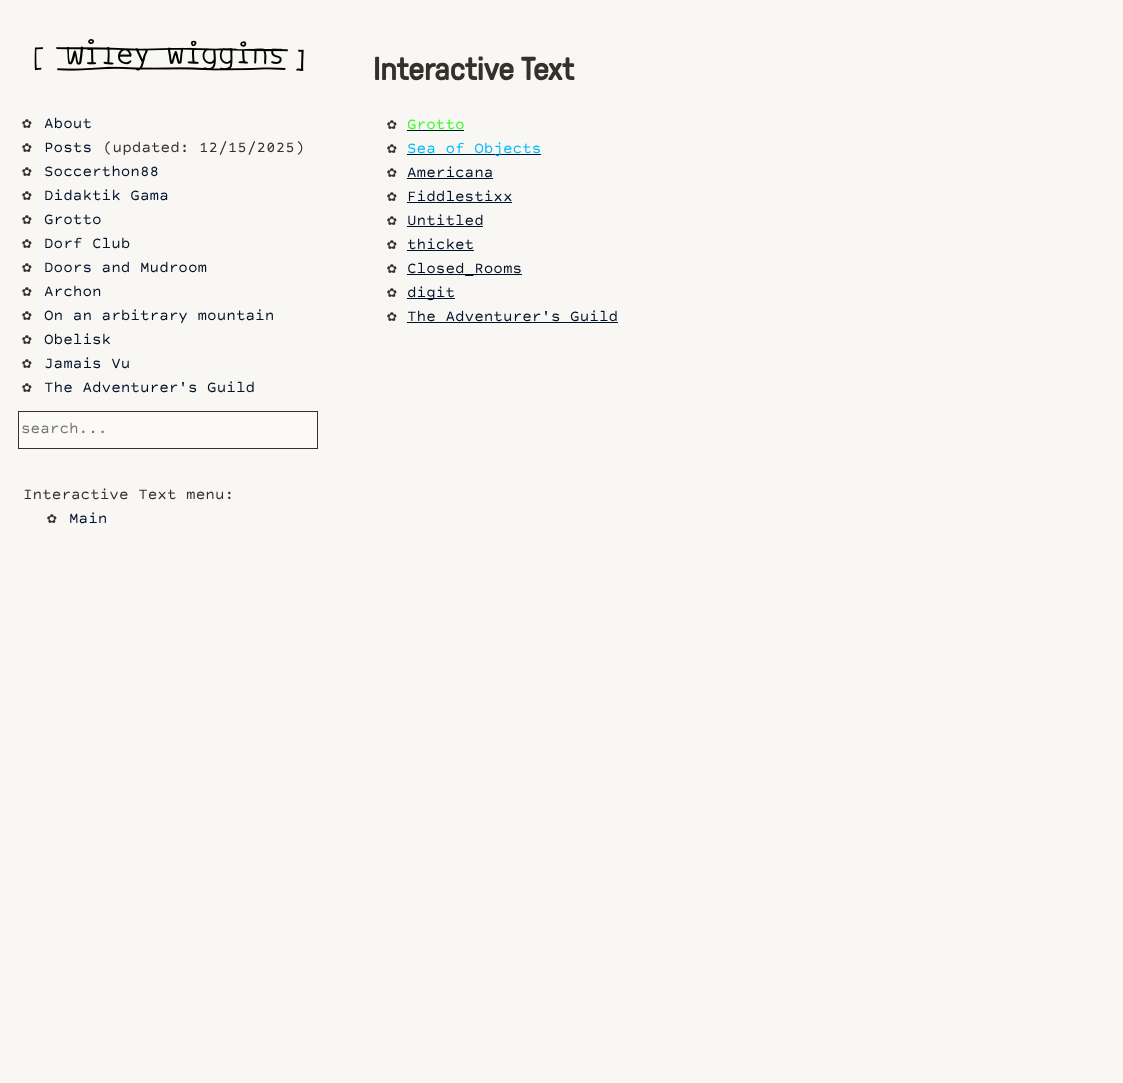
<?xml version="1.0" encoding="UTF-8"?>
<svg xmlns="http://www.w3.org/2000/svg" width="1123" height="1083">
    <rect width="100%" height="100%" fill="#F9F7F3"/>
    <image x="34" y="39" width="270" height="32" href="img_01.png"/>
    <text x="22" y="128" font-family="DejaVu Sans Mono" font-size="16" fill="#33312B">✿</text>
    <text x="44" y="128" font-family="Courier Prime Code" font-size="16" fill="#00112A">About</text>
    <text x="22" y="152" font-family="DejaVu Sans Mono" font-size="16" fill="#33312B">✿</text>
    <text x="44" y="152" font-family="Courier Prime Code" font-size="16" fill="#00112A">Posts</text>
    <text x="103" y="152" font-family="Courier Prime Code" font-size="16" fill="#33312B">(updated: 12/15/2025)</text>
    <text x="22" y="176" font-family="DejaVu Sans Mono" font-size="16" fill="#33312B">✿</text>
    <text x="44" y="176" font-family="Courier Prime Code" font-size="16" fill="#00112A">Soccerthon88</text>
    <text x="22" y="200" font-family="DejaVu Sans Mono" font-size="16" fill="#33312B">✿</text>
    <text x="44" y="200" font-family="Courier Prime Code" font-size="16" fill="#00112A">Didaktik Gama</text>
    <text x="22" y="224" font-family="DejaVu Sans Mono" font-size="16" fill="#33312B">✿</text>
    <text x="44" y="224" font-family="Courier Prime Code" font-size="16" fill="#00112A">Grotto</text>
    <text x="22" y="248" font-family="DejaVu Sans Mono" font-size="16" fill="#33312B">✿</text>
    <text x="44" y="248" font-family="Courier Prime Code" font-size="16" fill="#00112A">Dorf Club</text>
    <text x="22" y="272" font-family="DejaVu Sans Mono" font-size="16" fill="#33312B">✿</text>
    <text x="44" y="272" font-family="Courier Prime Code" font-size="16" fill="#00112A">Doors and Mudroom</text>
    <text x="22" y="296" font-family="DejaVu Sans Mono" font-size="16" fill="#33312B">✿</text>
    <text x="44" y="296" font-family="Courier Prime Code" font-size="16" fill="#00112A">Archon</text>
    <text x="22" y="320" font-family="DejaVu Sans Mono" font-size="16" fill="#33312B">✿</text>
    <text x="44" y="320" font-family="Courier Prime Code" font-size="16" fill="#00112A">On an arbitrary mountain</text>
    <text x="22" y="344" font-family="DejaVu Sans Mono" font-size="16" fill="#33312B">✿</text>
    <text x="44" y="344" font-family="Courier Prime Code" font-size="16" fill="#00112A">Obelisk</text>
    <text x="22" y="368" font-family="DejaVu Sans Mono" font-size="16" fill="#33312B">✿</text>
    <text x="44" y="368" font-family="Courier Prime Code" font-size="16" fill="#00112A">Jamais Vu</text>
    <text x="22" y="392" font-family="DejaVu Sans Mono" font-size="16" fill="#33312B">✿</text>
    <text x="44" y="392" font-family="Courier Prime Code" font-size="16" fill="#00112A">The Adventurer's Guild</text>
    <rect x="18.5" y="411.5" width="299" height="37" fill="#FBFAF8" stroke="#33312B"/>
    <text x="21" y="433" font-family="Courier Prime Code" font-size="16" fill="#757575">search...</text>
    <text x="23" y="499" font-family="Courier Prime Code" font-size="16" fill="#33312B">Interactive Text menu:</text>
    <text x="47" y="523" font-family="DejaVu Sans Mono" font-size="16" fill="#33312B">✿</text>
    <text x="69" y="523" font-family="Courier Prime Code" font-size="16" fill="#00112A">Main</text>
    <text x="373" y="80" font-family="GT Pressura" font-size="32" font-weight="700" fill="#33312B">Interactive Text</text>
    <text x="387" y="129" font-family="DejaVu Sans Mono" font-size="16" fill="#33312B">✿</text>
    <text x="407" y="129" font-family="Courier Prime Code" font-size="16" fill="#33FF22">Grotto</text>
    <rect x="407" y="130" width="57" height="1" fill="#00112A"/>
    <text x="387" y="153" font-family="DejaVu Sans Mono" font-size="16" fill="#33312B">✿</text>
    <rect x="407" y="154" width="134" height="1" fill="#00112A"/>
    <text x="407" y="153" font-family="Courier Prime Code" font-size="16" fill="#00BBFF">Sea of Objects</text>
    <text x="387" y="177" font-family="DejaVu Sans Mono" font-size="16" fill="#33312B">✿</text>
    <text x="407" y="177" font-family="Courier Prime Code" font-size="16" fill="#00112A">Americana</text>
    <rect x="407" y="178" width="86" height="1" fill="#00112A"/>
    <text x="387" y="201" font-family="DejaVu Sans Mono" font-size="16" fill="#33312B">✿</text>
    <text x="407" y="201" font-family="Courier Prime Code" font-size="16" fill="#00112A">Fiddlestixx</text>
    <rect x="407" y="202" width="105" height="1" fill="#00112A"/>
    <text x="387" y="225" font-family="DejaVu Sans Mono" font-size="16" fill="#33312B">✿</text>
    <text x="407" y="225" font-family="Courier Prime Code" font-size="16" fill="#00112A">Untitled</text>
    <rect x="407" y="226" width="76" height="1" fill="#00112A"/>
    <text x="387" y="249" font-family="DejaVu Sans Mono" font-size="16" fill="#33312B">✿</text>
    <text x="407" y="249" font-family="Courier Prime Code" font-size="16" fill="#00112A">thicket</text>
    <rect x="407" y="250" width="67" height="1" fill="#00112A"/>
    <text x="387" y="273" font-family="DejaVu Sans Mono" font-size="16" fill="#33312B">✿</text>
    <rect x="407" y="274" width="115" height="1" fill="#00112A"/>
    <text x="407" y="273" font-family="Courier Prime Code" font-size="16" fill="#00112A">Closed_Rooms</text>
    <text x="387" y="297" font-family="DejaVu Sans Mono" font-size="16" fill="#33312B">✿</text>
    <rect x="407" y="298" width="48" height="1" fill="#00112A"/>
    <text x="407" y="297" font-family="Courier Prime Code" font-size="16" fill="#00112A">digit</text>
    <text x="387" y="321" font-family="DejaVu Sans Mono" font-size="16" fill="#33312B">✿</text>
    <text x="407" y="321" font-family="Courier Prime Code" font-size="16" fill="#00112A">The Adventurer's Guild</text>
    <rect x="407" y="322" width="211" height="1" fill="#00112A"/>
</svg>
